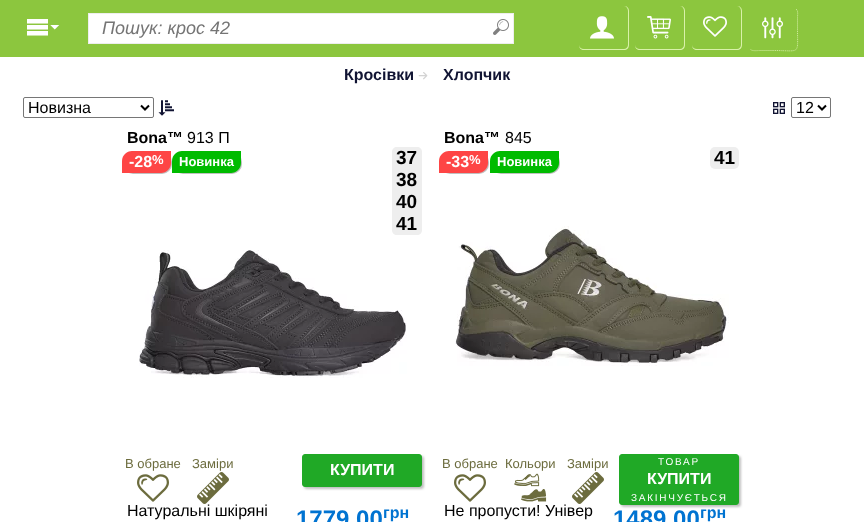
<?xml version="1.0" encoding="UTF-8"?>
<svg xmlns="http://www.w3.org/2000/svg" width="864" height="522">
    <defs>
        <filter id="blur1" x="-50%" y="-200%" width="200%" height="500%"><feGaussianBlur stdDeviation="0.5"/></filter>
        <filter id="blur2" x="-50%" y="-200%" width="200%" height="500%"><feGaussianBlur stdDeviation="1"/></filter>
    </defs>
    <rect width="100%" height="100%" fill="#FFFFFF"/>
    <rect x="0" y="0" width="864" height="57" fill="#8CC63E"/>
    <image x="27" y="19" width="33" height="17" href="img_01.png"/>
    <rect x="88.5" y="13.5" width="425" height="30" fill="#FFFFFF" stroke="#EEEEEE"/>
    <text x="102" y="34" font-family="Liberation Sans" font-size="18" font-style="italic" fill="#757575">Пошук: крос 42</text>
    <image x="493" y="19" width="16" height="16" href="img_02.png"/>
    <path d="M 584 6 H 624 C 627 6 629 8 629 11 V 45 C 629 48 627 50 624 50 H 584 C 581 50 579 48 579 45 V 11 C 579 8 581 6 584 6 Z M 584 6 H 624 C 626 6 628 8 628 11 V 45 C 628 47 626 49 624 49 H 584 C 581 49 579 47 579 45 V 11 C 579 8 581 6 584 6 Z" fill="#D9F1AA" fill-rule="evenodd"/>
    <image x="590" y="16" width="24" height="23" href="img_03.png"/>
    <path d="M 640 6 H 680 C 683 6 685 8 685 11 V 45 C 685 48 683 50 680 50 H 640 C 637 50 635 48 635 45 V 11 C 635 8 637 6 640 6 Z M 640 6 H 680 C 682 6 684 8 684 11 V 45 C 684 47 682 49 680 49 H 640 C 637 49 635 47 635 45 V 11 C 635 8 637 6 640 6 Z" fill="#D9F1AA" fill-rule="evenodd"/>
    <image x="647" y="15" width="24" height="24" href="img_04.png"/>
    <path d="M 697 6 H 737 C 740 6 742 8 742 11 V 45 C 742 48 740 50 737 50 H 697 C 694 50 692 48 692 45 V 11 C 692 8 694 6 697 6 Z M 697 6 H 737 C 739 6 741 8 741 11 V 45 C 741 47 739 49 737 49 H 697 C 694 49 692 47 692 45 V 11 C 692 8 694 6 697 6 Z" fill="#D9F1AA" fill-rule="evenodd"/>
    <image x="703" y="16" width="24" height="21" href="img_05.png"/>
    <path d="M 796 9 C 798.5 11 797.5 15 797.5 17.5 V 29 C 797.5 55.5 801 50.5 773 50.5 H 759.5 C 757.5 50.5 752 51.5 750 49" fill="none" stroke="#D9F1AA" stroke-dasharray="1 1"/>
    <image x="762" y="17" width="21" height="22" href="img_06.png"/>
    <text x="344" y="80" font-family="Liberation Sans" font-size="16" font-weight="700" fill="#111433">Кросівки</text>
    <image x="418" y="72" width="10" height="8" href="img_07.png"/>
    <text x="443" y="80" font-family="Liberation Sans" font-size="16" font-weight="700" fill="#111433">Хлопчик</text>
    <rect x="23.5" y="97.5" width="130" height="20" rx="1.5" fill="none" stroke="#767676"/>
    <path d="M 141 105.5 L 145 109.5 L 149 105.5" fill="none" stroke="#000000" stroke-width="2"/>
    <text x="28" y="113" font-family="Liberation Sans" font-size="16" fill="#000000">Новизна</text>
    <image x="158" y="100" width="16" height="16" href="img_08.png"/>
    <image x="773" y="102" width="12" height="12" href="img_09.png"/>
    <rect x="791.5" y="97.5" width="39" height="20" rx="1.5" fill="none" stroke="#767676"/>
    <path d="M 818 105.5 L 822 109.5 L 826 105.5" fill="none" stroke="#000000" stroke-width="2"/>
    <text x="796" y="113" font-family="Liberation Sans" font-size="16" fill="#000000">12</text>
    <text x="127" y="143" font-family="Liberation Sans" font-size="16" font-weight="700" fill="#000000">Bona™</text>
    <text x="187" y="143" font-family="Liberation Sans" font-size="16" fill="#000000">913 П</text>
    <rect x="123" y="152" width="49" height="22" rx="10" fill="#C0C0C0" filter="url(#blur1)"/>
    <path d="M 132 151 H 171 V 163 C 171 168.5 166.5 173 161 173 H 122 V 161 C 122 155.5 126.5 151 132 151 Z" fill="#FE4545"/>
    <text x="129" y="167" font-family="Liberation Sans" font-size="16" font-weight="700" fill="#FFFFFF">-28</text>
    <text x="152" y="164" font-family="Liberation Sans" font-size="13" font-weight="700" fill="#FFFFFF">%</text>
    <rect x="173" y="152" width="69" height="22" rx="10" fill="#C0C0C0" filter="url(#blur1)"/>
    <path d="M 182 151 H 241 V 163 C 241 168.5 236.5 173 231 173 H 172 V 161 C 172 155.5 176.5 151 182 151 Z" fill="#00BB00"/>
    <text x="179" y="166" font-family="Liberation Sans" font-size="13" font-weight="700" fill="#FFFFFF">Новинка</text>
    <path d="M 397 147 H 417 C 420 147 422 149 422 152 V 169 H 392 V 152 C 392 149 394 147 397 147 Z" fill="#EEEEEE"/>
    <text x="396" y="164" font-family="Liberation Sans" font-size="19" font-weight="700" fill="#000000">37</text>
    <rect x="392" y="169" width="30" height="44" fill="#EEEEEE"/>
    <text font-family="Liberation Sans" font-size="19" font-weight="700" fill="#000000">
        <tspan x="396" y="186">38</tspan>
        <tspan x="396" y="208">40</tspan>
    </text>
    <path d="M 392 213 H 422 V 230 C 422 233 420 235 417 235 H 397 C 394 235 392 233 392 230 Z" fill="#EEEEEE"/>
    <text x="396" y="230" font-family="Liberation Sans" font-size="19" font-weight="700" fill="#000000">41</text>
    <image x="139" y="250" width="268" height="128" href="img_10.png"/>
    <text x="125" y="468" font-family="Liberation Sans" font-size="13" fill="#6C6C3E">В обране</text>
    <image x="137" y="474" width="32" height="28" href="img_11.png"/>
    <text x="192" y="468" font-family="Liberation Sans" font-size="13" fill="#6C6C3E">Заміри</text>
    <image x="197" y="472" width="32" height="32" href="img_12.png"/>
    <rect x="304" y="456" width="120" height="33" rx="3" fill="#C0C0C0" filter="url(#blur2)"/>
    <rect x="302.5" y="454.5" width="119" height="32" rx="2.5" fill="#20A926" stroke="#20A926"/>
    <text x="330" y="475" font-family="Liberation Sans" font-size="16" font-weight="700" fill="#FFFFFF">КУПИТИ</text>
    <text x="127" y="516" font-family="Liberation Sans" font-size="16" fill="#000000">Натуральні шкіряні</text>
    <text x="296" y="527" font-family="Liberation Sans" font-size="24" font-weight="700" fill="#0073D1">1779.00</text>
    <text x="383" y="518" font-family="Liberation Sans" font-size="16" font-weight="700" fill="#0073D1">грн</text>
    <text x="444" y="143" font-family="Liberation Sans" font-size="16" font-weight="700" fill="#000000">Bona™</text>
    <text x="505" y="143" font-family="Liberation Sans" font-size="16" fill="#000000">845</text>
    <rect x="440" y="152" width="49" height="22" rx="10" fill="#C0C0C0" filter="url(#blur1)"/>
    <path d="M 449 151 H 488 V 163 C 488 168.5 483.5 173 478 173 H 439 V 161 C 439 155.5 443.5 151 449 151 Z" fill="#FE4545"/>
    <text x="446" y="167" font-family="Liberation Sans" font-size="16" font-weight="700" fill="#FFFFFF">-33</text>
    <text x="469" y="164" font-family="Liberation Sans" font-size="13" font-weight="700" fill="#FFFFFF">%</text>
    <rect x="491" y="152" width="69" height="22" rx="10" fill="#C0C0C0" filter="url(#blur1)"/>
    <path d="M 500 151 H 559 V 163 C 559 168.5 554.5 173 549 173 H 490 V 161 C 490 155.5 494.5 151 500 151 Z" fill="#00BB00"/>
    <text x="497" y="166" font-family="Liberation Sans" font-size="13" font-weight="700" fill="#FFFFFF">Новинка</text>
    <rect x="710" y="147" width="29" height="22" rx="5" fill="#EEEEEE"/>
    <text x="714" y="164" font-family="Liberation Sans" font-size="19" font-weight="700" fill="#000000">41</text>
    <image x="455" y="226" width="274" height="140" href="img_13.png"/>
    <text x="442" y="468" font-family="Liberation Sans" font-size="13" fill="#6C6C3E">В обране</text>
    <image x="454" y="474" width="32" height="28" href="img_11.png"/>
    <text x="505" y="468" font-family="Liberation Sans" font-size="13" fill="#6C6C3E">Кольори</text>
    <image x="514" y="473" width="33" height="29" href="img_14.png"/>
    <text x="567" y="468" font-family="Liberation Sans" font-size="13" fill="#6C6C3E">Заміри</text>
    <image x="572" y="472" width="32" height="32" href="img_12.png"/>
    <rect x="621" y="456" width="120" height="51" rx="3" fill="#C0C0C0" filter="url(#blur2)"/>
    <rect x="619.5" y="454.5" width="119" height="50" rx="2.5" fill="#20A926" stroke="#20A926"/>
    <text x="658" y="465" font-family="Liberation Sans" font-size="10" letter-spacing="1.75" fill="#FFFFFF">ТОВАР</text>
    <text x="647" y="484" font-family="Liberation Sans" font-size="16" font-weight="700" fill="#FFFFFF">КУПИТИ</text>
    <text x="631" y="501" font-family="Liberation Sans" font-size="10" letter-spacing="1.75" fill="#FFFFFF">ЗАКІНЧУЄТЬСЯ</text>
    <text x="444" y="516" font-family="Liberation Sans" font-size="16" fill="#000000">Не пропусти! Універ</text>
    <text x="613" y="527" font-family="Liberation Sans" font-size="24" font-weight="700" fill="#0073D1">1489.00</text>
    <text x="700" y="518" font-family="Liberation Sans" font-size="16" font-weight="700" fill="#0073D1">грн</text>
</svg>
